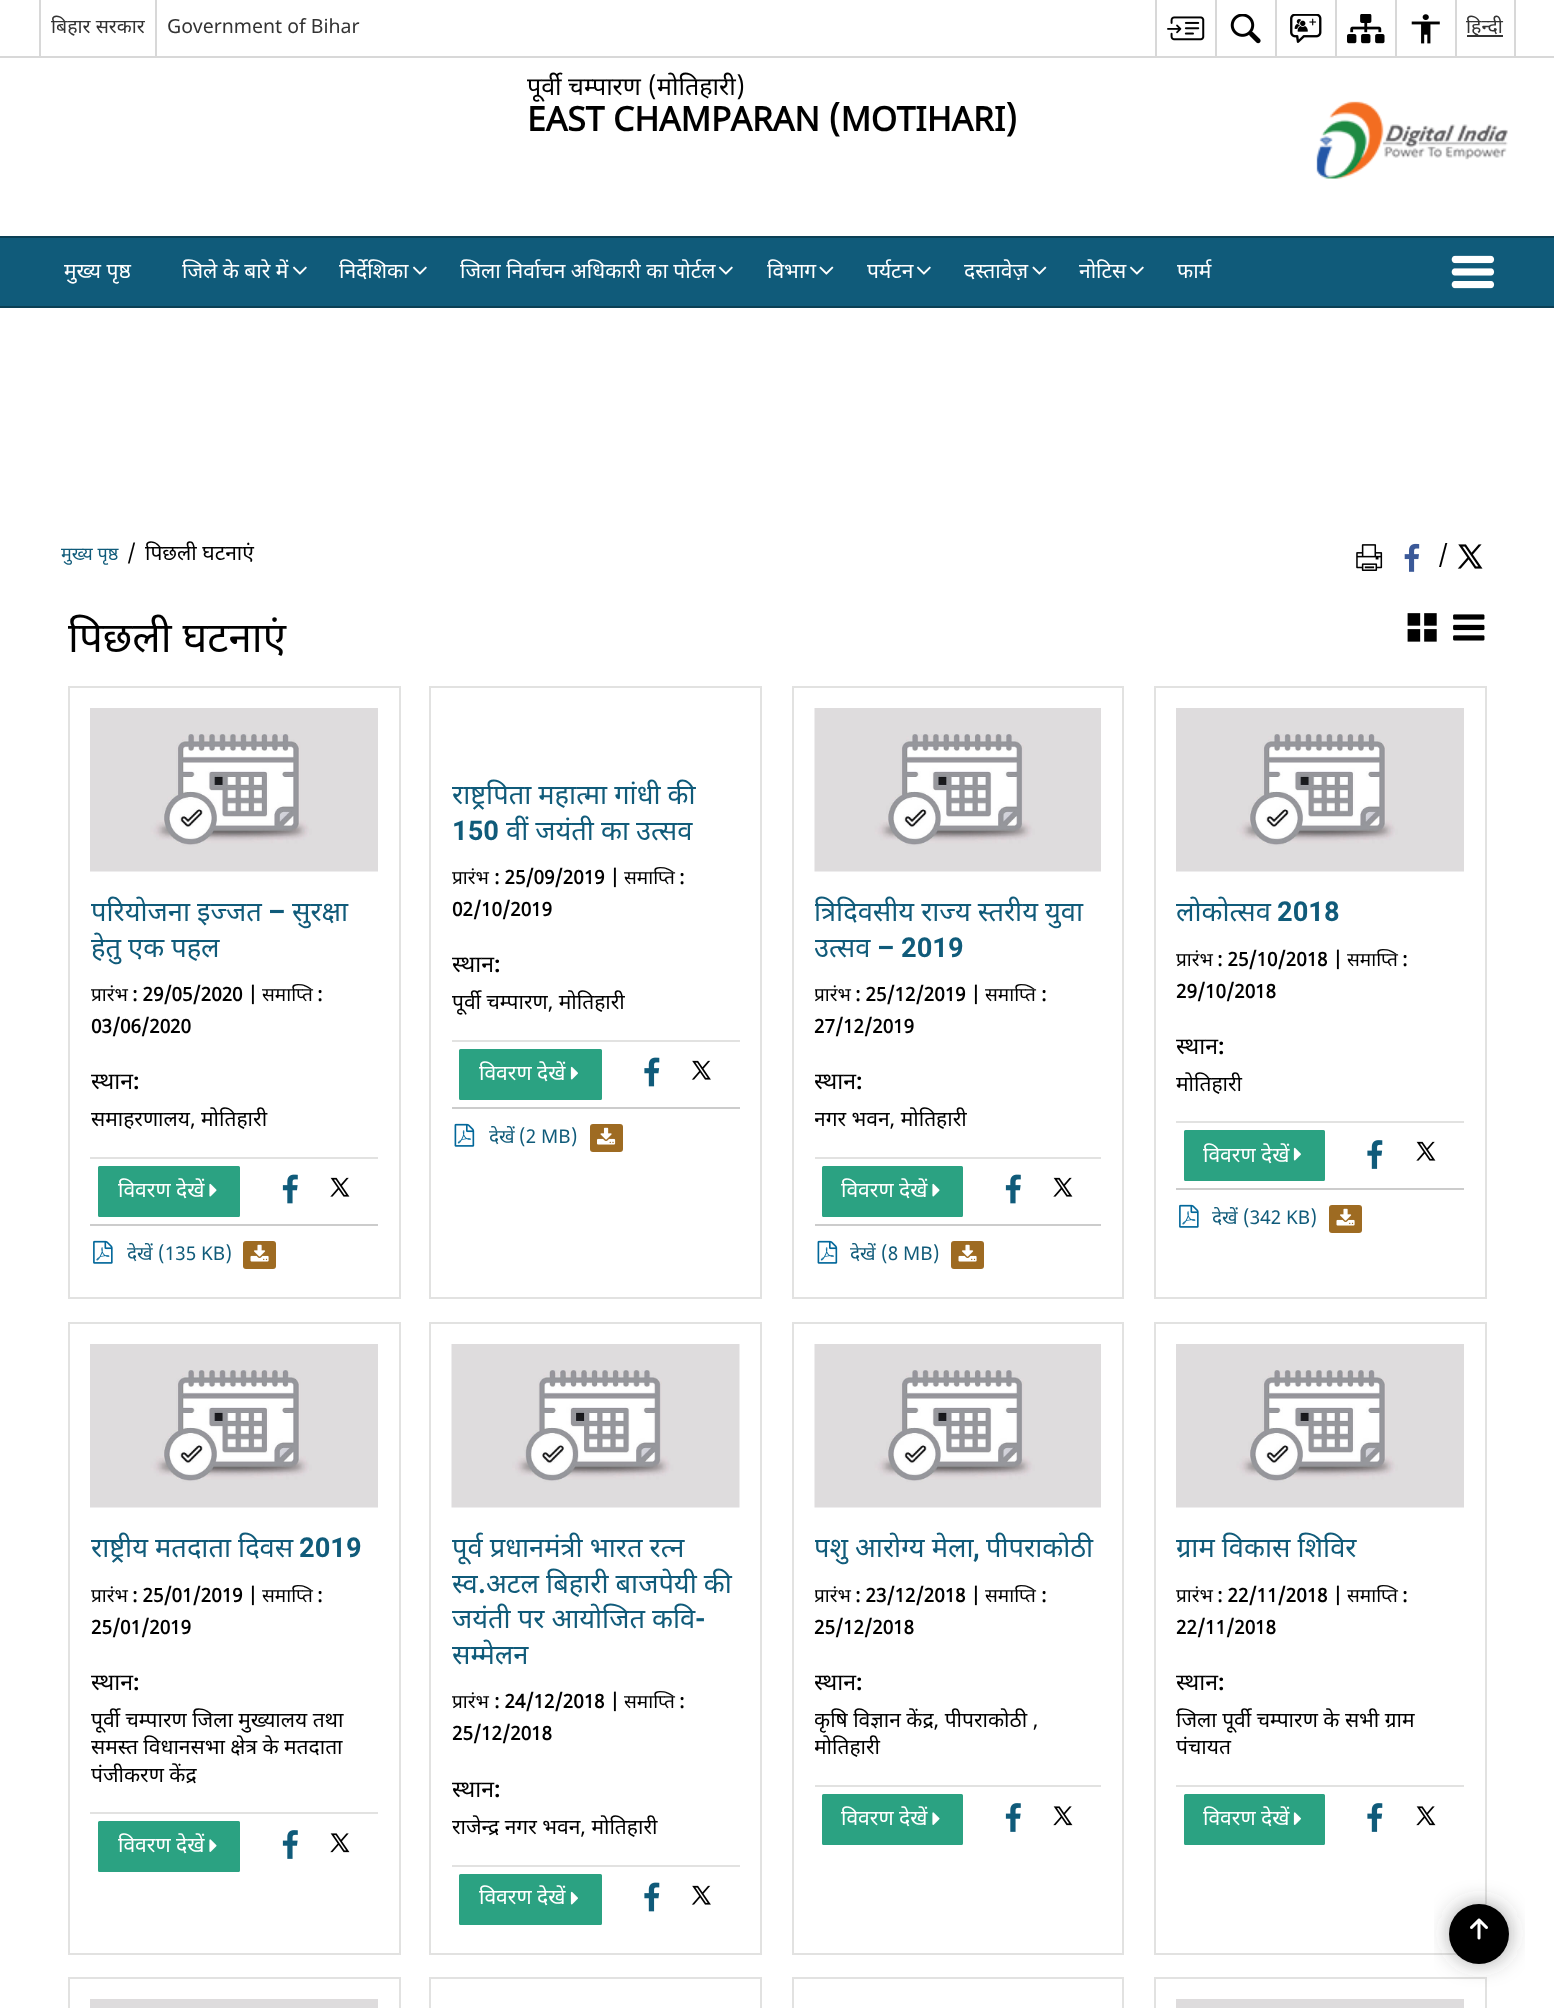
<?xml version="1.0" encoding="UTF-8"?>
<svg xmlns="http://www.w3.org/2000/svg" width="1554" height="2008">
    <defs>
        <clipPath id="clip1"><rect x="90" y="894" width="288" height="263"/></clipPath>
        <clipPath id="clip2"><rect x="452" y="777" width="288" height="263"/></clipPath>
        <clipPath id="clip3"><rect x="815" y="894" width="286" height="263"/></clipPath>
        <clipPath id="clip4"><rect x="1176" y="894" width="288" height="227"/></clipPath>
        <clipPath id="clip5"><rect x="90" y="1530" width="288" height="282"/></clipPath>
        <clipPath id="clip6"><rect x="452" y="1530" width="288" height="335"/></clipPath>
        <clipPath id="clip7"><rect x="815" y="1530" width="286" height="255"/></clipPath>
        <clipPath id="clip8"><rect x="1176" y="1530" width="288" height="255"/></clipPath>
        <filter id="blur1" x="-50%" y="-200%" width="200%" height="500%"><feGaussianBlur stdDeviation="14"/></filter>
    </defs>
    <rect width="100%" height="100%" fill="#FFFFFF"/>
    <rect x="0" y="56" width="1554" height="2" fill="#D8D8D8"/>
    <rect x="39" y="0" width="2" height="56" fill="#D8D8D8"/>
    <text x="51" y="33" font-family="Noto Sans" font-size="19.5" fill="#333333">बिहार सरकार</text>
    <rect x="155" y="0" width="2" height="56" fill="#D8D8D8"/>
    <text x="167" y="33" font-family="'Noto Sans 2'" font-size="19.5" fill="#333333">Government of Bihar</text>
    <rect x="1155" y="0" width="2" height="56" fill="#D8D8D8"/>
    <image x="1167" y="16" width="38" height="25" href="img_01.png"/>
    <rect x="1215" y="0" width="2" height="56" fill="#D8D8D8"/>
    <image x="1230" y="14" width="31" height="30" href="img_02.png"/>
    <rect x="1275" y="0" width="2" height="56" fill="#D8D8D8"/>
    <image x="1290" y="14" width="32" height="29" href="img_03.png"/>
    <rect x="1335" y="0" width="2" height="56" fill="#D8D8D8"/>
    <image x="1347" y="14" width="38" height="30" href="img_04.png"/>
    <rect x="1395" y="0" width="2" height="56" fill="#D8D8D8"/>
    <image x="1411" y="14" width="29" height="30" href="img_05.png"/>
    <rect x="1514" y="0" width="2" height="56" fill="#D8D8D8"/>
    <rect x="1455" y="0" width="2" height="56" fill="#D8D8D8"/>
    <rect x="1467" y="35" width="36" height="2" fill="#333333"/>
    <text x="1466" y="33" font-family="Noto Sans" font-size="19.5" fill="#333333">हिन्दी</text>
    <text x="527" y="95" font-family="Noto Sans" font-size="25" fill="#000000">पूर्वी चम्पारण</text>
    <text x="648" y="95" font-family="'Noto Sans 2'" font-size="25" fill="#000000">(</text>
    <text x="657" y="95" font-family="Noto Sans" font-size="25" fill="#000000">मोतिहारी</text>
    <text x="736" y="95" font-family="'Noto Sans 2'" font-size="25" fill="#000000">)</text>
    <text x="527" y="131" font-family="Noto Sans" font-size="33.6" font-weight="700" fill="#000000">EAST CHAMPARAN (MOTIHARI)</text>
    <image x="1316" y="101" width="192" height="78" href="img_06.png"/>
    <rect x="0" y="238" width="1554" height="68" fill="#105B7A"/>
    <rect x="0" y="236" width="1554" height="2" fill="#0B4055"/>
    <rect x="0" y="306" width="1554" height="2" fill="#0B4055"/>
    <text x="64" y="278" font-family="Noto Sans" font-size="21" fill="#FFFFFF">मुख्य पृष्ठ</text>
    <text x="182" y="278" font-family="Noto Sans" font-size="21" fill="#FFFFFF">जिले के बारे में</text>
    <image x="292" y="266" width="15" height="9" href="img_07.png"/>
    <text x="339" y="278" font-family="Noto Sans" font-size="21" fill="#FFFFFF">निर्देशिका</text>
    <image x="412" y="266" width="15" height="9" href="img_07.png"/>
    <text x="460" y="278" font-family="Noto Sans" font-size="21" fill="#FFFFFF">जिला निर्वाचन अधिकारी का पोर्टल</text>
    <image x="718" y="266" width="15" height="9" href="img_07.png"/>
    <text x="767" y="278" font-family="Noto Sans" font-size="21" fill="#FFFFFF">विभाग</text>
    <image x="819" y="266" width="15" height="9" href="img_08.png"/>
    <text x="867" y="278" font-family="Noto Sans" font-size="21" fill="#FFFFFF">पर्यटन</text>
    <image x="916" y="266" width="15" height="9" href="img_07.png"/>
    <text x="964" y="278" font-family="Noto Sans" font-size="21" fill="#FFFFFF">दस्तावेज़</text>
    <image x="1032" y="266" width="15" height="9" href="img_08.png"/>
    <text x="1079" y="278" font-family="Noto Sans" font-size="21" fill="#FFFFFF">नोटिस</text>
    <image x="1129" y="266" width="15" height="9" href="img_07.png"/>
    <text x="1177" y="278" font-family="Noto Sans" font-size="21" fill="#FFFFFF">फार्म</text>
    <image x="1451" y="255" width="44" height="34" href="img_09.png"/>
    <text x="61" y="560" font-family="Noto Sans" font-size="18" fill="#105B7A">मुख्य पृष्ठ</text>
    <text x="127" y="560" font-family="'Noto Sans 2'" font-size="21" fill="#000000">/</text>
    <text x="145" y="560" font-family="Noto Sans" font-size="21" fill="#000000">पिछली घटनाएं</text>
    <image x="1356" y="544" width="27" height="27" href="img_10.png"/>
    <image x="1404" y="543" width="16" height="29" href="img_11.png"/>
    <text x="1438" y="563" font-family="'Noto Sans 2'" font-size="24" fill="#000000">/</text>
    <image x="1457" y="544" width="26" height="25" href="img_12.png"/>
    <text x="68" y="652" font-family="Noto Sans" font-size="42" fill="#000000">पिछली घटनाएं</text>
    <image x="1407" y="613" width="30" height="29" href="img_13.png"/>
    <image x="1453" y="614" width="32" height="27" href="img_14.png"/>
    <rect x="69" y="687" width="331" height="611" fill="none" stroke="#E2E2E1" stroke-width="2"/>
    <image x="90" y="708" width="288" height="164" href="img_15.png"/>
    <rect x="90" y="1157" width="288" height="2" fill="#E2E2E1"/>
    <text x="91" y="921" font-family="Noto Sans" font-size="27.25" fill="#105B7A">परियोजना इज्जत</text>
    <text x="268" y="921" font-family="Roboto" font-size="27.25" font-weight="700" fill="#105B7A">–</text>
    <text x="292" y="921" font-family="Noto Sans" font-size="27.25" fill="#105B7A">सुरक्षा</text>
    <g clip-path="url(#clip1)">
        <text x="91" y="957" font-family="Noto Sans" font-size="27.25" fill="#105B7A">हेतु एक पहल</text>
    </g>
    <text x="91" y="1001" font-family="Noto Sans" font-size="19" fill="#000000">प्रारंभ</text>
    <text x="132" y="1001" font-family="Noto Sans" font-size="19" font-weight="700" fill="#000000">: 29/05/2020 |</text>
    <text x="262" y="1001" font-family="Noto Sans" font-size="19" fill="#000000">समाप्ति</text>
    <text x="317" y="1001" font-family="Noto Sans" font-size="19" font-weight="700" fill="#000000">:</text>
    <text x="91" y="1033" font-family="Noto Sans" font-size="19" font-weight="700" fill="#000000">03/06/2020</text>
    <text x="91" y="1089" font-family="Noto Sans" font-size="23" fill="#000000">स्थान</text>
    <text x="133" y="1089" font-family="Roboto" font-size="23" font-weight="700" fill="#000000">:</text>
    <text x="91" y="1126" font-family="Noto Sans" font-size="21" fill="#000000">समाहरणालय, मोतिहारी</text>
    <rect x="99" y="1167" width="140" height="49" rx="0.5" fill="#2BA282" stroke="#2BA282" stroke-width="2"/>
    <text x="118" y="1197" font-family="Noto Sans" font-size="21" fill="#FFFFFF">विवरण देखें</text>
    <image x="209" y="1183" width="8" height="14" href="img_16.png"/>
    <image x="282" y="1174" width="16" height="30" href="img_17.png"/>
    <image x="330" y="1177" width="20" height="20" href="img_18.png"/>
    <rect x="90" y="1224" width="288" height="2" fill="#CCCCCC"/>
    <image x="93" y="1240" width="20" height="24" href="img_19.png"/>
    <text x="127" y="1260" font-family="Noto Sans" font-size="19" fill="#105B7A">देखें</text>
    <text x="158" y="1260" font-family="'Noto Sans 2'" font-size="19" fill="#105B7A">(135 KB)</text>
    <rect x="243" y="1241" width="33" height="28" rx="3" fill="#9E6B22"/>
    <image x="250" y="1244" width="19" height="18" href="img_20.png"/>
    <rect x="430" y="687" width="331" height="611" fill="none" stroke="#E2E2E1" stroke-width="2"/>
    <rect x="452" y="1040" width="288" height="2" fill="#E2E2E1"/>
    <text x="452" y="804" font-family="Noto Sans" font-size="27.25" fill="#105B7A">राष्ट्रपिता महात्मा गांधी की</text>
    <text x="452" y="840" font-family="Roboto" font-size="27.25" font-weight="700" fill="#105B7A">150</text>
    <text x="506" y="840" font-family="Noto Sans" font-size="27.25" fill="#105B7A">वीं जयंती का उत्सव</text>
    <text x="452" y="884" font-family="Noto Sans" font-size="19" fill="#000000">प्रारंभ</text>
    <text x="494" y="884" font-family="Noto Sans" font-size="19" font-weight="700" fill="#000000">: 25/09/2019 |</text>
    <text x="624" y="884" font-family="Noto Sans" font-size="19" fill="#000000">समाप्ति</text>
    <text x="679" y="884" font-family="Noto Sans" font-size="19" font-weight="700" fill="#000000">:</text>
    <text x="452" y="916" font-family="Noto Sans" font-size="19" font-weight="700" fill="#000000">02/10/2019</text>
    <text x="452" y="972" font-family="Noto Sans" font-size="23" fill="#000000">स्थान</text>
    <text x="494" y="972" font-family="Roboto" font-size="23" font-weight="700" fill="#000000">:</text>
    <g clip-path="url(#clip2)">
        <text x="452" y="1009" font-family="Noto Sans" font-size="21" fill="#000000">पूर्वी चम्पारण, मोतिहारी</text>
    </g>
    <rect x="460" y="1050" width="141" height="49" rx="0.5" fill="#2BA282" stroke="#2BA282" stroke-width="2"/>
    <text x="479" y="1080" font-family="Noto Sans" font-size="21" fill="#FFFFFF">विवरण देखें</text>
    <image x="570" y="1066" width="8" height="14" href="img_21.png"/>
    <image x="644" y="1057" width="16" height="30" href="img_22.png"/>
    <image x="691" y="1060" width="20" height="20" href="img_23.png"/>
    <rect x="452" y="1107" width="288" height="2" fill="#CCCCCC"/>
    <image x="454" y="1123" width="21" height="24" href="img_24.png"/>
    <text x="489" y="1143" font-family="Noto Sans" font-size="19" fill="#105B7A">देखें</text>
    <text x="519" y="1143" font-family="'Noto Sans 2'" font-size="19" fill="#105B7A">(2 MB)</text>
    <rect x="590" y="1124" width="33" height="28" rx="3" fill="#9E6B22"/>
    <image x="597" y="1127" width="19" height="18" href="img_25.png"/>
    <rect x="793" y="687" width="330" height="611" fill="none" stroke="#E2E2E1" stroke-width="2"/>
    <image x="814" y="708" width="287" height="164" href="img_26.png"/>
    <rect x="815" y="1157" width="286" height="2" fill="#E2E2E1"/>
    <g clip-path="url(#clip3)">
        <text font-family="Noto Sans" font-size="27.25" fill="#105B7A">
            <tspan x="814" y="921">त्रिदिवसीय राज्य स्तरीय युवा</tspan>
            <tspan x="814" y="957">उत्सव</tspan>
        </text>
    </g>
    <text x="877" y="957" font-family="Roboto" font-size="27.25" font-weight="700" fill="#105B7A">– 2019</text>
    <g clip-path="url(#clip3)">
        <text x="814" y="1001" font-family="Noto Sans" font-size="19" fill="#000000">प्रारंभ</text>
    </g>
    <text x="855" y="1001" font-family="Noto Sans" font-size="19" font-weight="700" fill="#000000">: 25/12/2019 |</text>
    <text x="985" y="1001" font-family="Noto Sans" font-size="19" fill="#000000">समाप्ति</text>
    <text x="1041" y="1001" font-family="Noto Sans" font-size="19" font-weight="700" fill="#000000">:</text>
    <text x="814" y="1033" font-family="Noto Sans" font-size="19" font-weight="700" fill="#000000">27/12/2019</text>
    <g clip-path="url(#clip3)">
        <text x="814" y="1089" font-family="Noto Sans" font-size="23" fill="#000000">स्थान</text>
    </g>
    <text x="856" y="1089" font-family="Roboto" font-size="23" font-weight="700" fill="#000000">:</text>
    <g clip-path="url(#clip3)">
        <text x="814" y="1126" font-family="Noto Sans" font-size="21" fill="#000000">नगर भवन, मोतिहारी</text>
    </g>
    <rect x="823" y="1167" width="139" height="49" rx="0.5" fill="#2BA282" stroke="#2BA282" stroke-width="2"/>
    <text x="841" y="1197" font-family="Noto Sans" font-size="21" fill="#FFFFFF">विवरण देखें</text>
    <image x="932" y="1183" width="8" height="14" href="img_16.png"/>
    <image x="1005" y="1174" width="16" height="30" href="img_17.png"/>
    <image x="1053" y="1177" width="20" height="20" href="img_18.png"/>
    <rect x="815" y="1224" width="286" height="2" fill="#CCCCCC"/>
    <image x="817" y="1240" width="21" height="24" href="img_24.png"/>
    <text x="850" y="1260" font-family="Noto Sans" font-size="19" fill="#105B7A">देखें</text>
    <text x="881" y="1260" font-family="'Noto Sans 2'" font-size="19" fill="#105B7A">(8 MB)</text>
    <rect x="951" y="1241" width="33" height="28" rx="3" fill="#9E6B22"/>
    <image x="958" y="1244" width="19" height="18" href="img_20.png"/>
    <rect x="1155" y="687" width="331" height="611" fill="none" stroke="#E2E2E1" stroke-width="2"/>
    <image x="1176" y="708" width="288" height="164" href="img_15.png"/>
    <rect x="1176" y="1121" width="288" height="2" fill="#E2E2E1"/>
    <g clip-path="url(#clip4)">
        <text x="1176" y="921" font-family="Noto Sans" font-size="27.25" fill="#105B7A">लोकोत्सव</text>
    </g>
    <text x="1277" y="921" font-family="Roboto" font-size="27.25" font-weight="700" fill="#105B7A">2018</text>
    <text x="1176" y="966" font-family="Noto Sans" font-size="19" fill="#000000">प्रारंभ</text>
    <text x="1217" y="966" font-family="Noto Sans" font-size="19" font-weight="700" fill="#000000">: 25/10/2018 |</text>
    <text x="1347" y="966" font-family="Noto Sans" font-size="19" fill="#000000">समाप्ति</text>
    <text x="1402" y="966" font-family="Noto Sans" font-size="19" font-weight="700" fill="#000000">:</text>
    <text x="1176" y="998" font-family="Noto Sans" font-size="19" font-weight="700" fill="#000000">29/10/2018</text>
    <g clip-path="url(#clip4)">
        <text x="1176" y="1054" font-family="Noto Sans" font-size="23" fill="#000000">स्थान</text>
    </g>
    <text x="1218" y="1054" font-family="Roboto" font-size="23" font-weight="700" fill="#000000">:</text>
    <g clip-path="url(#clip4)">
        <text x="1176" y="1091" font-family="Noto Sans" font-size="21" fill="#000000">मोतिहारी</text>
    </g>
    <rect x="1185" y="1131" width="139" height="49" rx="0.5" fill="#2BA282" stroke="#2BA282" stroke-width="2"/>
    <text x="1203" y="1162" font-family="Noto Sans" font-size="21" fill="#FFFFFF">विवरण देखें</text>
    <image x="1293" y="1147" width="8" height="14" href="img_21.png"/>
    <image x="1367" y="1140" width="16" height="29" href="img_27.png"/>
    <image x="1416" y="1141" width="20" height="20" href="img_18.png"/>
    <rect x="1176" y="1188" width="288" height="2" fill="#CCCCCC"/>
    <image x="1179" y="1204" width="20" height="24" href="img_19.png"/>
    <text x="1212" y="1224" font-family="Noto Sans" font-size="19" fill="#105B7A">देखें</text>
    <text x="1243" y="1224" font-family="'Noto Sans 2'" font-size="19" fill="#105B7A">(342 KB)</text>
    <rect x="1329" y="1205" width="33" height="28" rx="3" fill="#9E6B22"/>
    <image x="1336" y="1208" width="19" height="18" href="img_20.png"/>
    <rect x="69" y="1323" width="331" height="631" fill="none" stroke="#E2E2E1" stroke-width="2"/>
    <image x="90" y="1344" width="288" height="164" href="img_15.png"/>
    <rect x="90" y="1812" width="288" height="2" fill="#E2E2E1"/>
    <text x="91" y="1557" font-family="Noto Sans" font-size="27.25" fill="#105B7A">राष्ट्रीय मतदाता दिवस</text>
    <text x="299" y="1557" font-family="Roboto" font-size="27.25" font-weight="700" fill="#105B7A">2019</text>
    <text x="91" y="1602" font-family="Noto Sans" font-size="19" fill="#000000">प्रारंभ</text>
    <text x="132" y="1602" font-family="Noto Sans" font-size="19" font-weight="700" fill="#000000">: 25/01/2019 |</text>
    <text x="262" y="1602" font-family="Noto Sans" font-size="19" fill="#000000">समाप्ति</text>
    <text x="317" y="1602" font-family="Noto Sans" font-size="19" font-weight="700" fill="#000000">:</text>
    <text x="91" y="1634" font-family="Noto Sans" font-size="19" font-weight="700" fill="#000000">25/01/2019</text>
    <text x="91" y="1690" font-family="Noto Sans" font-size="23" fill="#000000">स्थान</text>
    <text x="133" y="1690" font-family="Roboto" font-size="23" font-weight="700" fill="#000000">:</text>
    <g clip-path="url(#clip5)">
        <text x="91" y="1727" font-family="Noto Sans" font-size="21" fill="#000000">पूर्वी चम्पारण जिला मुख्यालय तथा</text>
    </g>
    <text x="91" y="1754" font-family="Noto Sans" font-size="21" fill="#000000">समस्त विधानसभा क्षेत्र के मतदाता</text>
    <g clip-path="url(#clip5)">
        <text x="91" y="1782" font-family="Noto Sans" font-size="21" fill="#000000">पंजीकरण केंद्र</text>
    </g>
    <rect x="99" y="1822" width="140" height="49" rx="0.5" fill="#2BA282" stroke="#2BA282" stroke-width="2"/>
    <text x="118" y="1852" font-family="Noto Sans" font-size="21" fill="#FFFFFF">विवरण देखें</text>
    <image x="209" y="1839" width="8" height="13" href="img_28.png"/>
    <image x="282" y="1830" width="16" height="29" href="img_29.png"/>
    <image x="330" y="1833" width="20" height="20" href="img_30.png"/>
    <rect x="430" y="1323" width="331" height="631" fill="none" stroke="#E2E2E1" stroke-width="2"/>
    <image x="451" y="1344" width="289" height="164" href="img_31.png"/>
    <rect x="452" y="1865" width="288" height="2" fill="#E2E2E1"/>
    <g clip-path="url(#clip6)">
        <text x="452" y="1557" font-family="Noto Sans" font-size="27.25" fill="#105B7A">पूर्व प्रधानमंत्री भारत रत्न</text>
    </g>
    <text x="452" y="1593" font-family="Noto Sans" font-size="27.25" fill="#105B7A">स्व</text>
    <text x="478" y="1593" font-family="Roboto" font-size="27.25" font-weight="700" fill="#105B7A">.</text>
    <text x="486" y="1593" font-family="Noto Sans" font-size="27.25" fill="#105B7A">अटल बिहारी बाजपेयी की</text>
    <text x="452" y="1628" font-family="Noto Sans" font-size="27.25" fill="#105B7A">जयंती पर आयोजित कवि</text>
    <text x="695" y="1628" font-family="Roboto" font-size="27.25" font-weight="700" fill="#105B7A">-</text>
    <text x="452" y="1664" font-family="Noto Sans" font-size="27.25" fill="#105B7A">सम्मेलन</text>
    <text x="452" y="1708" font-family="Noto Sans" font-size="19" fill="#000000">प्रारंभ</text>
    <text x="494" y="1708" font-family="Noto Sans" font-size="19" font-weight="700" fill="#000000">: 24/12/2018 |</text>
    <text x="624" y="1708" font-family="Noto Sans" font-size="19" fill="#000000">समाप्ति</text>
    <text x="679" y="1708" font-family="Noto Sans" font-size="19" font-weight="700" fill="#000000">:</text>
    <text x="452" y="1740" font-family="Noto Sans" font-size="19" font-weight="700" fill="#000000">25/12/2018</text>
    <text x="452" y="1797" font-family="Noto Sans" font-size="23" fill="#000000">स्थान</text>
    <text x="494" y="1797" font-family="Roboto" font-size="23" font-weight="700" fill="#000000">:</text>
    <text x="452" y="1834" font-family="Noto Sans" font-size="21" fill="#000000">राजेन्द्र नगर भवन, मोतिहारी</text>
    <rect x="460" y="1875" width="141" height="49" rx="0.5" fill="#2BA282" stroke="#2BA282" stroke-width="2"/>
    <text x="479" y="1904" font-family="Noto Sans" font-size="21" fill="#FFFFFF">विवरण देखें</text>
    <image x="570" y="1891" width="8" height="14" href="img_21.png"/>
    <image x="644" y="1882" width="16" height="30" href="img_22.png"/>
    <image x="691" y="1885" width="20" height="20" href="img_23.png"/>
    <rect x="793" y="1323" width="330" height="631" fill="none" stroke="#E2E2E1" stroke-width="2"/>
    <image x="814" y="1344" width="287" height="164" href="img_26.png"/>
    <rect x="815" y="1785" width="286" height="2" fill="#E2E2E1"/>
    <g clip-path="url(#clip7)">
        <text x="814" y="1557" font-family="Noto Sans" font-size="27.25" fill="#105B7A">पशु आरोग्य मेला</text>
    </g>
    <text x="973" y="1557" font-family="Roboto" font-size="27.25" font-weight="700" fill="#105B7A">,</text>
    <text x="986" y="1557" font-family="Noto Sans" font-size="27.25" fill="#105B7A">पीपराकोठी</text>
    <g clip-path="url(#clip7)">
        <text x="814" y="1602" font-family="Noto Sans" font-size="19" fill="#000000">प्रारंभ</text>
    </g>
    <text x="855" y="1602" font-family="Noto Sans" font-size="19" font-weight="700" fill="#000000">: 23/12/2018 |</text>
    <text x="985" y="1602" font-family="Noto Sans" font-size="19" fill="#000000">समाप्ति</text>
    <text x="1041" y="1602" font-family="Noto Sans" font-size="19" font-weight="700" fill="#000000">:</text>
    <text x="814" y="1634" font-family="Noto Sans" font-size="19" font-weight="700" fill="#000000">25/12/2018</text>
    <g clip-path="url(#clip7)">
        <text x="814" y="1690" font-family="Noto Sans" font-size="23" fill="#000000">स्थान</text>
    </g>
    <text x="856" y="1690" font-family="Roboto" font-size="23" font-weight="700" fill="#000000">:</text>
    <g clip-path="url(#clip7)">
        <text font-family="Noto Sans" font-size="21" fill="#000000">
            <tspan x="814" y="1727">कृषि विज्ञान केंद्र, पीपराकोठी ,</tspan>
            <tspan x="814" y="1754">मोतिहारी</tspan>
        </text>
    </g>
    <rect x="823" y="1795" width="139" height="49" rx="0.5" fill="#2BA282" stroke="#2BA282" stroke-width="2"/>
    <text x="841" y="1825" font-family="Noto Sans" font-size="21" fill="#FFFFFF">विवरण देखें</text>
    <image x="932" y="1812" width="8" height="13" href="img_28.png"/>
    <image x="1005" y="1803" width="16" height="29" href="img_29.png"/>
    <image x="1053" y="1806" width="20" height="20" href="img_30.png"/>
    <rect x="1155" y="1323" width="331" height="631" fill="none" stroke="#E2E2E1" stroke-width="2"/>
    <image x="1176" y="1344" width="288" height="164" href="img_15.png"/>
    <rect x="1176" y="1785" width="288" height="2" fill="#E2E2E1"/>
    <text x="1176" y="1557" font-family="Noto Sans" font-size="27.25" fill="#105B7A">ग्राम विकास शिविर</text>
    <text x="1176" y="1602" font-family="Noto Sans" font-size="19" fill="#000000">प्रारंभ</text>
    <text x="1217" y="1602" font-family="Noto Sans" font-size="19" font-weight="700" fill="#000000">: 22/11/2018 |</text>
    <text x="1347" y="1602" font-family="Noto Sans" font-size="19" fill="#000000">समाप्ति</text>
    <text x="1402" y="1602" font-family="Noto Sans" font-size="19" font-weight="700" fill="#000000">:</text>
    <text x="1176" y="1634" font-family="Noto Sans" font-size="19" font-weight="700" fill="#000000">22/11/2018</text>
    <g clip-path="url(#clip8)">
        <text x="1176" y="1690" font-family="Noto Sans" font-size="23" fill="#000000">स्थान</text>
    </g>
    <text x="1218" y="1690" font-family="Roboto" font-size="23" font-weight="700" fill="#000000">:</text>
    <text x="1176" y="1727" font-family="Noto Sans" font-size="21" fill="#000000">जिला पूर्वी चम्पारण के सभी ग्राम</text>
    <g clip-path="url(#clip8)">
        <text x="1176" y="1754" font-family="Noto Sans" font-size="21" fill="#000000">पंचायत</text>
    </g>
    <rect x="1185" y="1795" width="139" height="49" rx="0.5" fill="#2BA282" stroke="#2BA282" stroke-width="2"/>
    <text x="1203" y="1825" font-family="Noto Sans" font-size="21" fill="#FFFFFF">विवरण देखें</text>
    <image x="1293" y="1812" width="8" height="13" href="img_32.png"/>
    <image x="1367" y="1803" width="16" height="29" href="img_27.png"/>
    <image x="1416" y="1806" width="20" height="20" href="img_30.png"/>
    <rect x="69" y="1978" width="331" height="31" fill="none" stroke="#E2E2E1" stroke-width="2"/>
    <rect x="90" y="1999" width="288" height="9" fill="#DEDCDD"/>
    <rect x="430" y="1978" width="331" height="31" fill="none" stroke="#E2E2E1" stroke-width="2"/>
    <rect x="793" y="1978" width="330" height="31" fill="none" stroke="#E2E2E1" stroke-width="2"/>
    <rect x="1155" y="1978" width="331" height="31" fill="none" stroke="#E2E2E1" stroke-width="2"/>
    <rect x="1176" y="1999" width="288" height="9" fill="#DEDCDD"/>
    <rect x="1457" y="1911" width="45" height="45" rx="22.5" fill="#3C3C3C" filter="url(#blur1)"/>
    <circle cx="1479" cy="1934" r="30" fill="#000000"/>
    <image x="1470" y="1918" width="18" height="22" href="img_33.png"/>
</svg>
